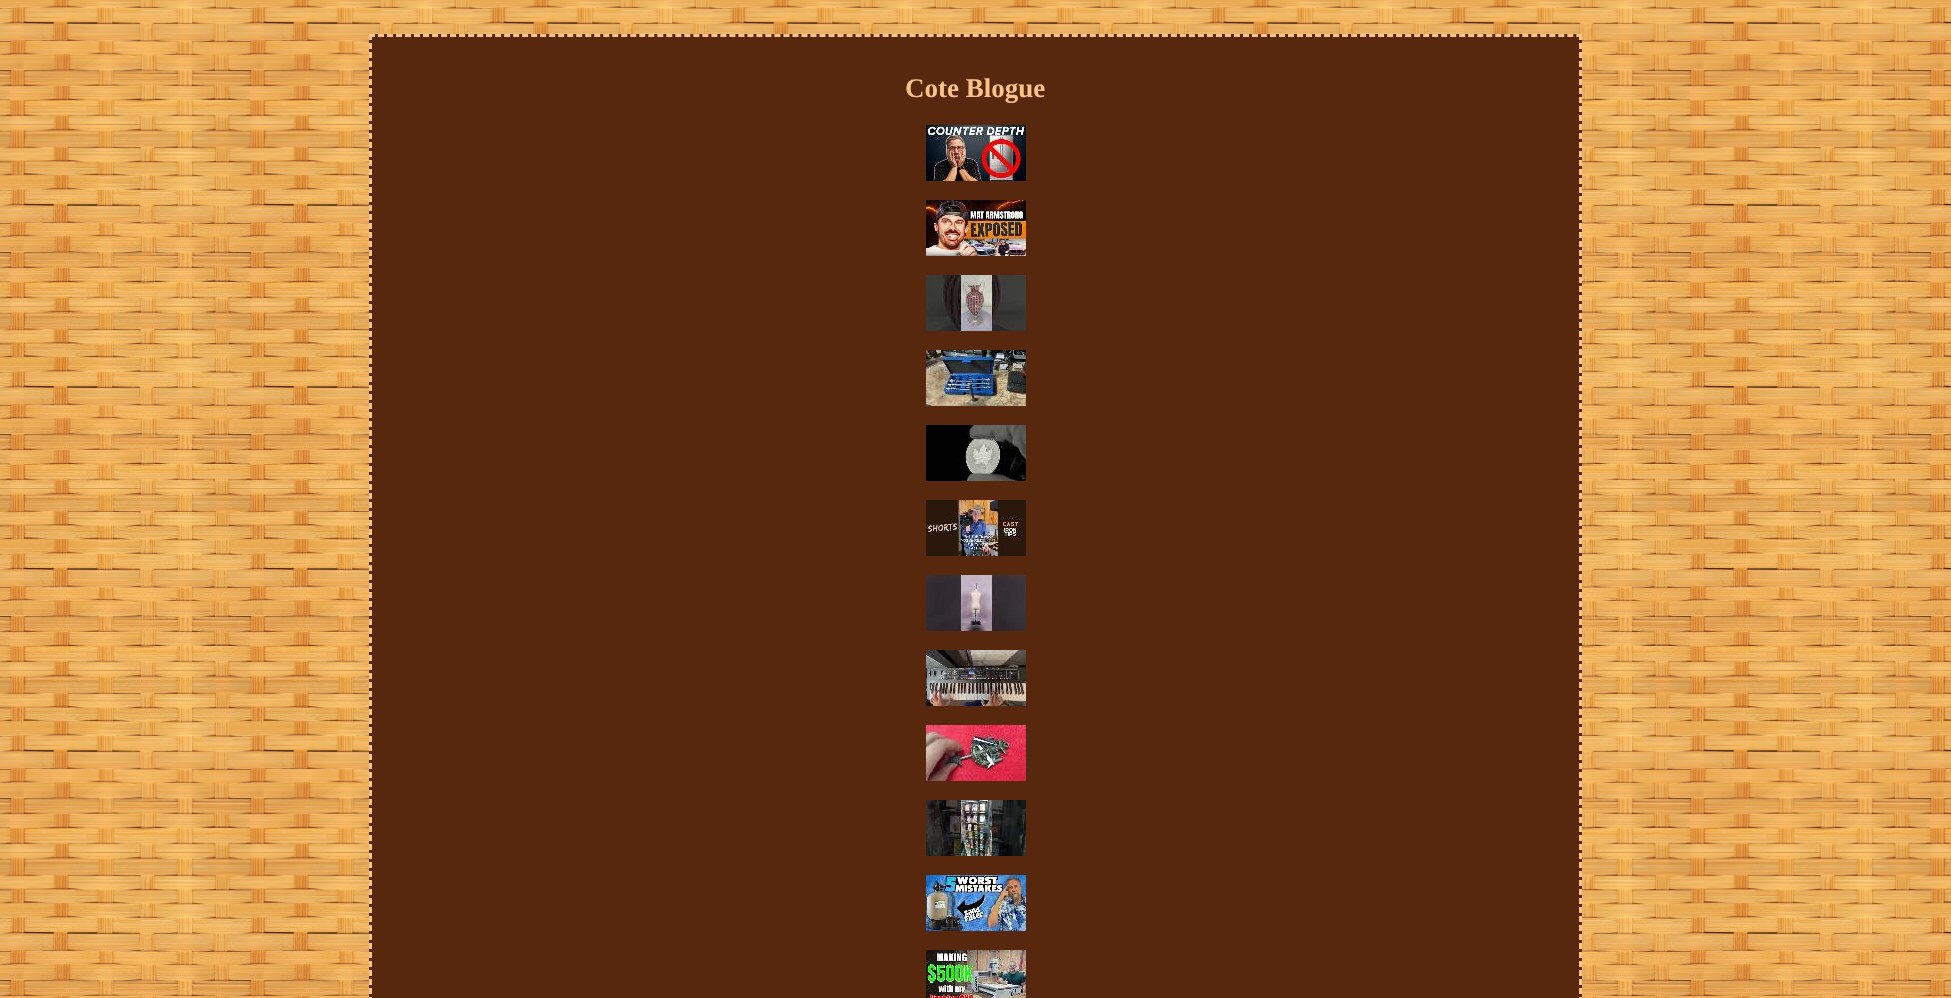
<?xml version="1.0" encoding="UTF-8"?>
<svg xmlns="http://www.w3.org/2000/svg" width="1951" height="998">
    <rect width="100%" height="100%" fill="#FFFFFF"/>
    <image x="0" y="0" width="1951" height="998" href="img_01.png"/>
    <rect x="369" y="34" width="1213" height="964" fill="#57280E"/>
    <path d="M 369 35.5 H 1582" fill="none" stroke="#FBC38A" stroke-width="3" stroke-dasharray="6 3.01"/>
    <path d="M 1580.5 34 V 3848" fill="none" stroke="#FBC38A" stroke-width="3" stroke-dasharray="6 3"/>
    <path d="M 370.5 34 V 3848" fill="none" stroke="#FBC38A" stroke-width="3" stroke-dasharray="6 3"/>
    <text x="905" y="97" font-family="Liberation Serif" font-size="27" font-weight="700" fill="#FBC38A">Cote Blogue</text>
    <image x="926" y="125" width="100" height="56" href="img_02.png"/>
    <image x="926" y="200" width="100" height="56" href="img_03.png"/>
    <image x="926" y="275" width="100" height="56" href="img_04.png"/>
    <image x="926" y="350" width="100" height="56" href="img_05.png"/>
    <image x="926" y="425" width="100" height="56" href="img_06.png"/>
    <image x="926" y="500" width="100" height="56" href="img_07.png"/>
    <image x="926" y="575" width="100" height="56" href="img_08.png"/>
    <image x="926" y="650" width="100" height="56" href="img_09.png"/>
    <image x="926" y="725" width="100" height="56" href="img_10.png"/>
    <image x="926" y="800" width="100" height="56" href="img_11.png"/>
    <image x="926" y="875" width="100" height="56" href="img_12.png"/>
    <image x="926" y="950" width="100" height="48" href="img_13.png"/>
</svg>
